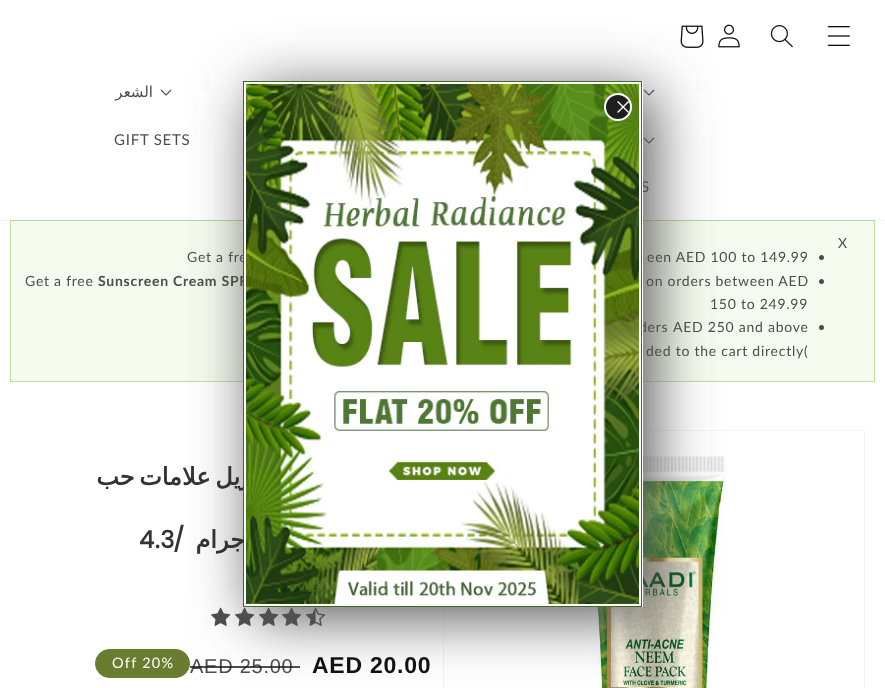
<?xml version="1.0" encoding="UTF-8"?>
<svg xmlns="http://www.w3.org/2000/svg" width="885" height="688">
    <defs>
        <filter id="blur1" x="-50%" y="-200%" width="200%" height="500%"><feGaussianBlur stdDeviation="30"/></filter>
    </defs>
    <rect width="100%" height="100%" fill="#FFFFFF"/>
    <rect x="10.5" y="220.5" width="864" height="161" fill="#F5FCEF" stroke="#BBE29E"/>
    <rect x="0" y="220" width="885" height="1" fill="#1B1F23" fill-opacity="0.04"/>
    <image x="680" y="25" width="24" height="23" href="img_03.png"/>
    <image x="718" y="24" width="22" height="24" href="img_04.png"/>
    <image x="160" y="89" width="12" height="7" href="img_07.png"/>
    <image x="643" y="89" width="12" height="7" href="img_07.png"/>
    <image x="643" y="137" width="12" height="7" href="img_07.png"/>
    <image x="211" y="607" width="20" height="19" href="img_08.png"/>
    <image x="235" y="607" width="20" height="19" href="img_08.png"/>
    <image x="259" y="607" width="20" height="19" href="img_08.png"/>
    <image x="282" y="607" width="20" height="19" href="img_08.png"/>
    <image x="306" y="607" width="20" height="19" href="img_09.png"/>
    <rect x="95.5" y="649.5" width="94" height="28" rx="14" fill="#687D2F" stroke="#687D2F"/>
    <text x="190" y="673" font-family="Liberation Sans" font-size="20" letter-spacing="0.75" fill="#4D4D4D">AED 25.00</text>
    <rect x="190" y="666" width="110" height="2" fill="#121212" fill-opacity="0.75"/>
    <rect x="443.5" y="430.5" width="421" height="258" fill="none" stroke="#F3F3F3"/>
    <image x="583" y="455" width="142" height="233" href="img_10.png"/>
    <rect x="253" y="91" width="400" height="526" fill="#555555" filter="url(#blur1)"/>
    <text x="641" y="192" font-family="Lato" font-size="15" letter-spacing="0.75" fill="#4D4D4D">S</text>
    <text x="187" y="262" font-family="Lato" font-size="14" letter-spacing="0.75" fill="#4D4D4D">Get a fre</text>
    <text x="98" y="286" font-family="Lato" font-size="14" font-weight="700" letter-spacing="0.75" fill="#4D4D4D">Sunscreen Cream SPF</text>
    <text x="639" y="332" font-family="Lato" font-size="14" letter-spacing="0.75" fill="#4D4D4D">ders</text>
    <text x="260" y="485" word-spacing="-3" font-family="DejaVu Sans" font-size="24" font-weight="700" letter-spacing="0.6" direction="rtl" fill="#333333">يزيل علامات حب</text>
    <rect x="244" y="81" width="399" height="526" fill="#FFFFFF"/>
    <rect x="243.5" y="81.5" width="398" height="525" fill="none" stroke="#406C20"/>
    <image x="246" y="83" width="393" height="521" href="img_01.png"/>
    <circle cx="618" cy="107" r="13" fill="#1F1F1F" stroke="#FFFFFF" stroke-width="2"/>
    <image x="617" y="101" width="12" height="12" href="img_02.png"/>
    <image x="770" y="25" width="23" height="23" href="img_05.png"/>
    <image x="827" y="26" width="23" height="20" href="img_06.png"/>
    <text x="153" y="97" font-family="DejaVu Sans" font-size="15" letter-spacing="0.75" direction="rtl" fill="#4D4D4D">الشعر</text>
    <text x="114" y="145" font-family="Lato" font-size="15" letter-spacing="0.75" fill="#4D4D4D">GIFT SETS</text>
    <text x="838" y="248" font-family="Lato" font-size="14" letter-spacing="0.75" fill="#4D4D4D">X</text>
    <text x="647" y="262" font-family="Lato" font-size="14" letter-spacing="0.75" fill="#4D4D4D">een AED 100 to 149.99</text>
    <circle cx="821.5" cy="257.5" r="2.5" fill="#4B4D49"/>
    <text x="25" y="286" font-family="Lato" font-size="14" letter-spacing="0.75" fill="#4D4D4D">Get a free</text>
    <text x="646" y="286" font-family="Lato" font-size="14" letter-spacing="0.75" fill="#4D4D4D">on orders between AED</text>
    <circle cx="821.5" cy="281.5" r="2.5" fill="#4B4D49"/>
    <text x="710" y="309" font-family="Lato" font-size="14" letter-spacing="0.75" fill="#4D4D4D">150 to 249.99</text>
    <text x="673" y="332" font-family="Lato" font-size="14" letter-spacing="0.75" fill="#4D4D4D">AED 250 and above</text>
    <circle cx="821.5" cy="327.5" r="2.5" fill="#4B4D49"/>
    <text x="646" y="356" font-family="Lato" font-size="14" letter-spacing="0.75" fill="#4D4D4D">ded to the cart directly(</text>
    <text x="139" y="548" font-family="Poppins" font-size="24" font-weight="700" letter-spacing="0.6" fill="#333333">4.3</text>
    <text x="185" y="548" font-family="Poppins" font-size="24" font-weight="700" letter-spacing="0.6" direction="rtl" fill="#333333">/</text>
    <text x="245" y="548" font-family="DejaVu Sans" font-size="24" font-weight="700" letter-spacing="0.6" direction="rtl" fill="#333333">جرام</text>
    <text x="112" y="668" font-family="Lato" font-size="14.5" letter-spacing="1.25" fill="#FFFFFF">Off 20%</text>
    <text x="312" y="673" font-family="Liberation Sans" font-size="23" font-weight="700" letter-spacing="0.75" fill="#121212">AED 20.00</text>
</svg>
